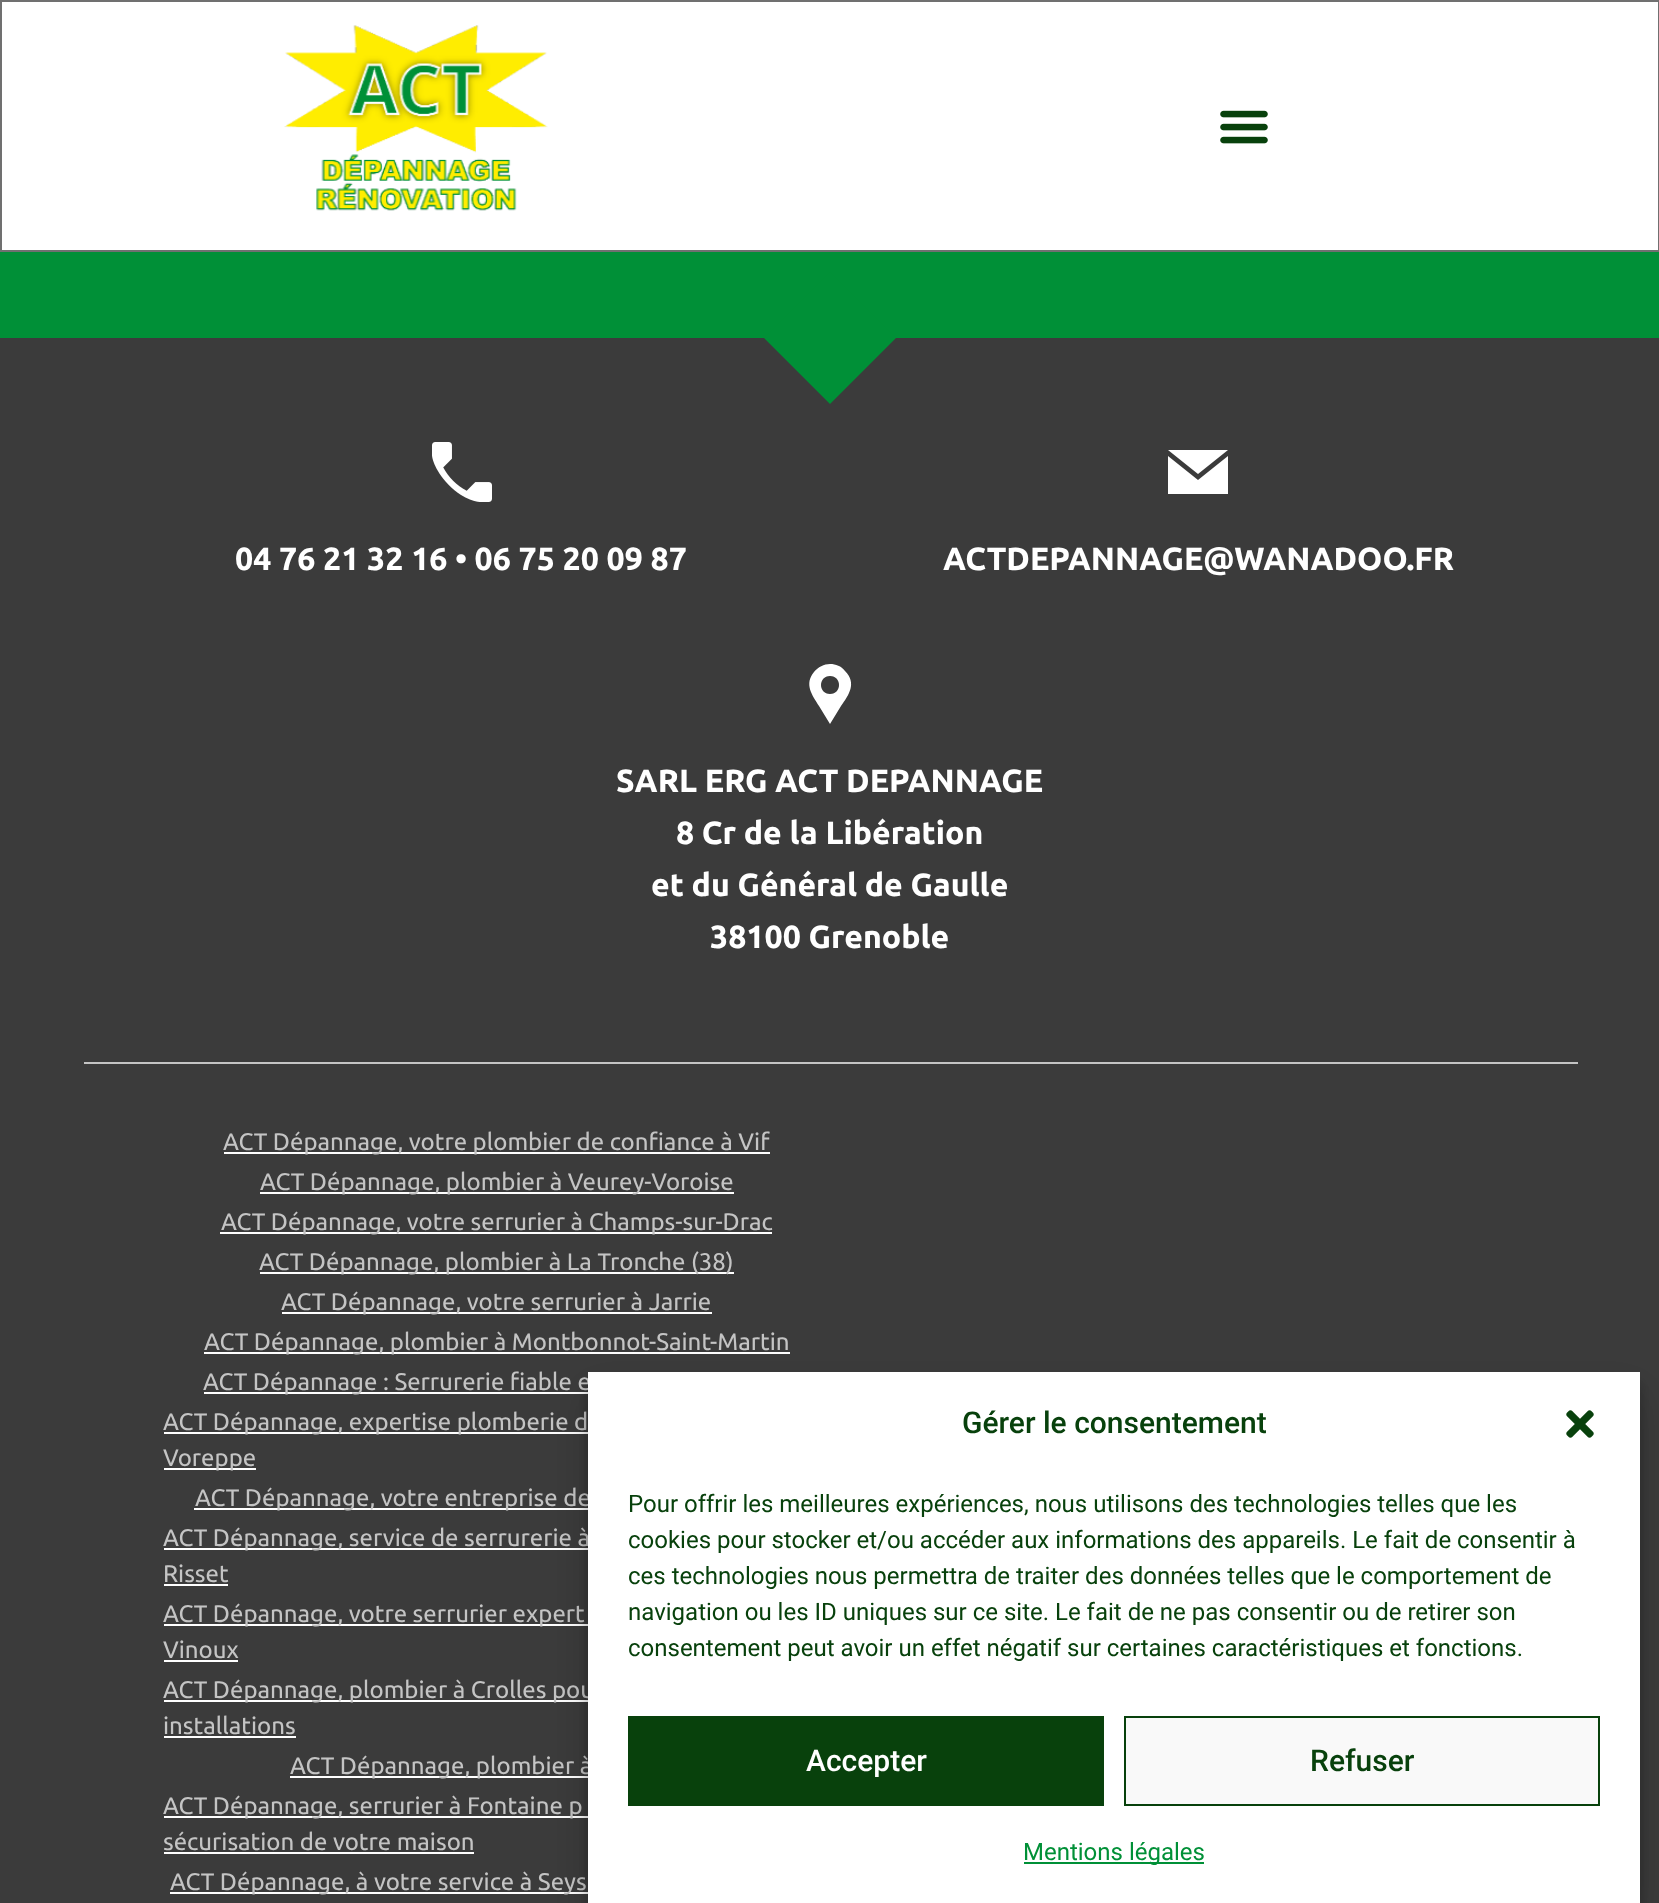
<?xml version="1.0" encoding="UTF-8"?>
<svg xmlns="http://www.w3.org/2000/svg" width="1659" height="1903">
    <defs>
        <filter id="blur1" x="-50%" y="-200%" width="200%" height="500%"><feGaussianBlur stdDeviation="6"/></filter>
        <filter id="blur2" x="-50%" y="-200%" width="200%" height="500%"><feGaussianBlur stdDeviation="20"/></filter>
    </defs>
    <rect width="100%" height="100%" fill="#009037"/>
    <rect x="1" y="1" width="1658" height="250" fill="#FFFFFF" stroke="#707070" stroke-width="2"/>
    <image x="284" y="25" width="264" height="186" href="img_01.png"/>
    <image x="1220" y="110" width="48" height="34" href="img_02.png"/>
    <rect x="0" y="338" width="1659" height="1565" fill="#3B3B3B"/>
    <path d="M 830 272 L 896 338 L 830 404 L 764 338 Z" fill="#009037"/>
    <image x="432" y="442" width="60" height="60" href="img_03.png"/>
    <text x="235" y="570" font-family="Ubuntu" font-size="32" font-weight="700" fill="#FFFFFF">04 76 21 32 16 • 06 75 20 09 87</text>
    <path d="M 1168 450 L 1198 474 L 1228 450 Z" fill="#FFFFFF"/>
    <path d="M 1198 480 L 1168 456 V 494 H 1228 V 456 Z" fill="#FFFFFF"/>
    <text x="943" y="570" font-family="Ubuntu" font-size="32" font-weight="700" fill="#FFFFFF">ACTDEPANNAGE@WANADOO.FR</text>
    <path d="M 830 664 C 824 664 818 667 814 672 C 804 684 812 695 819 706 L 830 724 L 841 706 C 849 695 857 683 845 671 C 841 666 836 664 830 664 M 830 694 C 818 694 818 676 830 676 C 842 676 842 694 830 694" fill="#FFFFFF"/>
    <text x="616" y="792" font-family="Ubuntu" font-size="32" font-weight="700" fill="#FFFFFF">SARL ERG ACT DEPANNAGE</text>
    <text x="676" y="844" font-family="Ubuntu" font-size="32" font-weight="700" fill="#FFFFFF">8 Cr de la Libération</text>
    <text x="651" y="896" font-family="Ubuntu" font-size="32" font-weight="700" fill="#FFFFFF">et du Général de Gaulle</text>
    <text x="710" y="948" font-family="Ubuntu" font-size="32" font-weight="700" fill="#FFFFFF">38100 Grenoble</text>
    <rect x="84" y="1062" width="1494" height="2" fill="#C4C4C4"/>
    <rect x="224" y="1152" width="546" height="2" fill="#FFFFFF"/>
    <text x="223" y="1150" font-family="Ubuntu" font-size="24" fill="#C4C4C4">ACT Dépannage, votre plombier de confiance à Vif</text>
    <rect x="260" y="1192" width="474" height="2" fill="#FFFFFF"/>
    <text x="260" y="1190" font-family="Ubuntu" font-size="24" fill="#C4C4C4">ACT Dépannage, plombier à Veurey-Voroise</text>
    <rect x="220" y="1232" width="552" height="2" fill="#FFFFFF"/>
    <text x="221" y="1230" font-family="Ubuntu" font-size="24" fill="#C4C4C4">ACT Dépannage, votre serrurier à Champs-sur-Drac</text>
    <rect x="260" y="1272" width="474" height="2" fill="#FFFFFF"/>
    <text x="259" y="1270" font-family="Ubuntu" font-size="24" fill="#C4C4C4">ACT Dépannage, plombier à La Tronche (38)</text>
    <rect x="282" y="1312" width="430" height="2" fill="#FFFFFF"/>
    <text x="281" y="1310" font-family="Ubuntu" font-size="24" fill="#C4C4C4">ACT Dépannage, votre serrurier à Jarrie</text>
    <rect x="204" y="1352" width="586" height="2" fill="#FFFFFF"/>
    <text x="204" y="1350" font-family="Ubuntu" font-size="24" fill="#C4C4C4">ACT Dépannage, plombier à Montbonnot-Saint-Martin</text>
    <rect x="204" y="1392" width="384" height="2" fill="#FFFFFF"/>
    <text x="203" y="1390" font-family="Ubuntu" font-size="24" fill="#C4C4C4">ACT Dépannage : Serrurerie fiable e</text>
    <rect x="164" y="1432" width="424" height="2" fill="#FFFFFF"/>
    <text x="163" y="1430" font-family="Ubuntu" font-size="24" fill="#C4C4C4">ACT Dépannage, expertise plomberie d</text>
    <rect x="164" y="1468" width="92" height="2" fill="#FFFFFF"/>
    <text x="163" y="1466" font-family="Ubuntu" font-size="24" fill="#C4C4C4">Voreppe</text>
    <rect x="194" y="1508" width="394" height="2" fill="#FFFFFF"/>
    <text x="195" y="1506" font-family="Ubuntu" font-size="24" fill="#C4C4C4">ACT Dépannage, votre entreprise de</text>
    <rect x="164" y="1548" width="424" height="2" fill="#FFFFFF"/>
    <text font-family="Ubuntu" font-size="24" fill="#C4C4C4">
        <tspan x="163" y="1546">ACT Dépannage, service de serrurerie à</tspan>
        <tspan x="163" y="1582">Risset</tspan>
    </text>
    <rect x="164" y="1584" width="64" height="2" fill="#FFFFFF"/>
    <rect x="164" y="1624" width="424" height="2" fill="#FFFFFF"/>
    <text font-family="Ubuntu" font-size="24" fill="#C4C4C4">
        <tspan x="163" y="1622">ACT Dépannage, votre serrurier expert</tspan>
        <tspan x="163" y="1658">Vinoux</tspan>
    </text>
    <rect x="164" y="1660" width="74" height="2" fill="#FFFFFF"/>
    <rect x="164" y="1700" width="424" height="2" fill="#FFFFFF"/>
    <text font-family="Ubuntu" font-size="24" fill="#C4C4C4">
        <tspan x="163" y="1698">ACT Dépannage, plombier à Crolles pou</tspan>
        <tspan x="163" y="1734">installations</tspan>
    </text>
    <rect x="164" y="1736" width="132" height="2" fill="#FFFFFF"/>
    <rect x="290" y="1776" width="298" height="2" fill="#FFFFFF"/>
    <text x="290" y="1774" font-family="Ubuntu" font-size="24" fill="#C4C4C4">ACT Dépannage, plombier à</text>
    <rect x="164" y="1816" width="424" height="2" fill="#FFFFFF"/>
    <text font-family="Ubuntu" font-size="24" fill="#C4C4C4">
        <tspan x="163" y="1814">ACT Dépannage, serrurier à Fontaine p</tspan>
        <tspan x="163" y="1850">sécurisation de votre maison</tspan>
    </text>
    <rect x="164" y="1852" width="310" height="2" fill="#FFFFFF"/>
    <rect x="170" y="1892" width="418" height="2" fill="#FFFFFF"/>
    <text x="170" y="1890" font-family="Ubuntu" font-size="24" fill="#C4C4C4">ACT Dépannage, à votre service à Seys</text>
    <rect x="588" y="1384" width="1052" height="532" fill="#000000" fill-opacity="0.23" filter="url(#blur1)"/>
    <rect x="588" y="1392" width="1052" height="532" fill="#000000" fill-opacity="0.19" filter="url(#blur2)"/>
    <rect x="588" y="1372" width="1052" height="531" fill="#FFFFFF"/>
    <text x="962" y="1433" font-family="Roboto" font-size="30" font-weight="500" fill="#08410C">Gérer le consentement</text>
    <image x="1566" y="1410" width="28" height="28" href="img_04.png"/>
    <text font-family="Roboto" font-size="24" fill="#08410C">
        <tspan x="628" y="1512">Pour offrir les meilleures expériences, nous utilisons des technologies telles que les</tspan>
        <tspan x="628" y="1548">cookies pour stocker et/ou accéder aux informations des appareils. Le fait de consentir à</tspan>
        <tspan x="628" y="1584">ces technologies nous permettra de traiter des données telles que le comportement de</tspan>
        <tspan x="628" y="1620">navigation ou les ID uniques sur ce site. Le fait de ne pas consentir ou de retirer son</tspan>
        <tspan x="628" y="1656">consentement peut avoir un effet négatif sur certaines caractéristiques et fonctions.</tspan>
    </text>
    <rect x="628" y="1716" width="476" height="90" fill="#08410C"/>
    <text x="806" y="1771" font-family="Roboto" font-size="30" font-weight="500" fill="#FFFFFF">Accepter</text>
    <rect x="1125" y="1717" width="474" height="88" fill="#F9F9F9" stroke="#08410C" stroke-width="2"/>
    <text x="1310" y="1771" font-family="Roboto" font-size="30" font-weight="500" fill="#08410C">Refuser</text>
    <rect x="1024" y="1862" width="180" height="2" fill="#009037"/>
    <text x="1023" y="1860" font-family="Roboto" font-size="24" fill="#009037">Mentions légales</text>
</svg>
